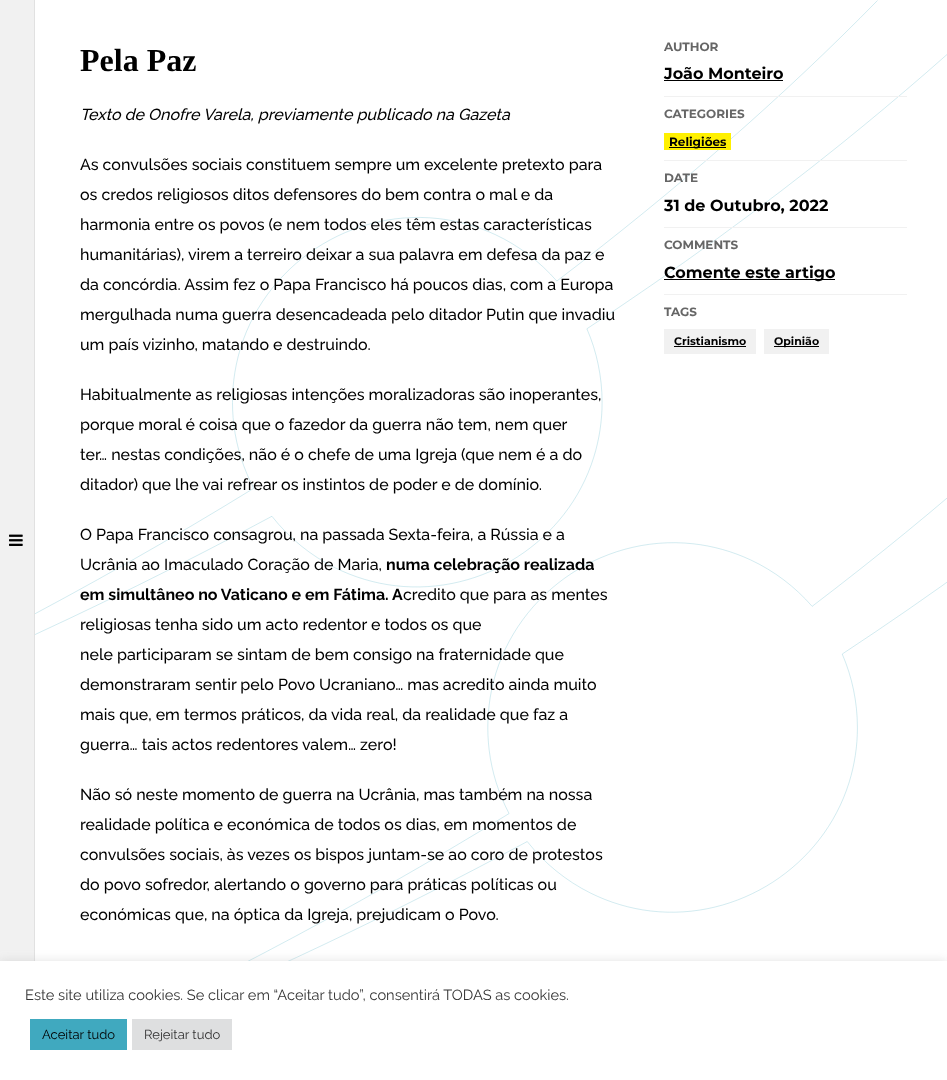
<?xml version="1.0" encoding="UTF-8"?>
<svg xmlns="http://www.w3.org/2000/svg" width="947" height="1080">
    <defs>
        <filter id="blur1" x="-50%" y="-200%" width="200%" height="500%"><feGaussianBlur stdDeviation="5"/></filter>
    </defs>
    <rect width="100%" height="100%" fill="#FFFFFF"/>
    <image x="35" y="0" width="912" height="961" href="img_01.png"/>
    <rect x="0" y="0" width="34" height="961" fill="#F1F1F1"/>
    <rect x="34" y="0" width="1" height="961" fill="#E1E1E1"/>
    <image x="9" y="534" width="14" height="12" href="img_02.png"/>
    <text x="80" y="71" font-family="Liberation Serif" font-size="32" font-weight="700" fill="#000000">Pela Paz</text>
    <text x="80" y="120" font-family="Raleway" font-size="16" font-weight="500" font-style="italic" fill="#000000">Texto de Onofre Varela, previamente publicado na Gazeta</text>
    <text font-family="Raleway" font-size="16" font-weight="500" fill="#000000">
        <tspan x="80" y="170">As convulsões sociais constituem sempre um excelente pretexto para</tspan>
        <tspan x="80" y="200">os credos religiosos ditos defensores do bem contra o mal e da</tspan>
        <tspan x="80" y="230">harmonia entre os povos (e nem todos eles têm estas características</tspan>
        <tspan x="80" y="260">humanitárias), virem a terreiro deixar a sua palavra em defesa da paz e</tspan>
        <tspan x="80" y="290">da concórdia. Assim fez o Papa Francisco há poucos dias, com a Europa</tspan>
        <tspan x="80" y="320">mergulhada numa guerra desencadeada pelo ditador Putin que invadiu</tspan>
        <tspan x="80" y="350">um país vizinho, matando e destruindo.</tspan>
    </text>
    <text font-family="Raleway" font-size="16" font-weight="500" fill="#000000">
        <tspan x="80" y="400">Habitualmente as religiosas intenções moralizadoras são inoperantes,</tspan>
        <tspan x="80" y="430">porque moral é coisa que o fazedor da guerra não tem, nem quer</tspan>
        <tspan x="80" y="460">ter… nestas condições, não é o chefe de uma Igreja (que nem é a do</tspan>
        <tspan x="80" y="490">ditador) que lhe vai refrear os instintos de poder e de domínio.</tspan>
    </text>
    <text font-family="Raleway" font-size="16" font-weight="500" fill="#000000">
        <tspan x="80" y="540">O Papa Francisco consagrou, na passada Sexta-feira, a Rússia e a</tspan>
        <tspan x="80" y="570">Ucrânia ao Imaculado Coração de Maria,</tspan>
    </text>
    <text x="386" y="570" font-family="Raleway" font-size="16" font-weight="700" fill="#000000">numa celebração realizada</text>
    <text x="80" y="600" font-family="Raleway" font-size="16" font-weight="700" fill="#000000">em simultâneo no Vaticano e em Fátima. A</text>
    <text x="403" y="600" font-family="Raleway" font-size="16" font-weight="500" fill="#000000">credito que para as mentes</text>
    <text font-family="Raleway" font-size="16" font-weight="500" fill="#000000">
        <tspan x="80" y="630">religiosas tenha sido um acto redentor e todos os que</tspan>
        <tspan x="80" y="660">nele participaram se sintam de bem consigo na fraternidade que</tspan>
        <tspan x="80" y="690">demonstraram sentir pelo Povo Ucraniano… mas acredito ainda muito</tspan>
        <tspan x="80" y="720">mais que, em termos práticos, da vida real, da realidade que faz a</tspan>
        <tspan x="80" y="750">guerra… tais actos redentores valem… zero!</tspan>
    </text>
    <text font-family="Raleway" font-size="16" font-weight="500" fill="#000000">
        <tspan x="80" y="800">Não só neste momento de guerra na Ucrânia, mas também na nossa</tspan>
        <tspan x="80" y="830">realidade política e económica de todos os dias, em momentos de</tspan>
        <tspan x="80" y="860">convulsões sociais, às vezes os bispos juntam-se ao coro de protestos</tspan>
        <tspan x="80" y="890">do povo sofredor, alertando o governo para práticas políticas ou</tspan>
        <tspan x="80" y="920">económicas que, na óptica da Igreja, prejudicam o Povo.</tspan>
    </text>
    <rect x="664" y="96" width="243" height="1" fill="#F1F1F1"/>
    <text x="664" y="51" font-family="Montserrat" font-size="12" font-weight="700" fill="#666666">AUTHOR</text>
    <text x="664" y="79" font-family="Montserrat" font-size="16" font-weight="700" fill="#000000">João Monteiro</text>
    <rect x="664" y="80" width="119" height="1" fill="#000000"/>
    <rect x="664" y="160" width="243" height="1" fill="#F1F1F1"/>
    <text x="664" y="118" font-family="Montserrat" font-size="12" font-weight="700" fill="#666666">CATEGORIES</text>
    <rect x="664" y="133" width="67" height="17" fill="#FFF000"/>
    <rect x="669" y="147" width="57" height="1" fill="#000000"/>
    <text x="669" y="146" font-family="Montserrat" font-size="12" font-weight="700" fill="#000000">Religiões</text>
    <rect x="664" y="227" width="243" height="1" fill="#F1F1F1"/>
    <text x="664" y="182" font-family="Montserrat" font-size="12" font-weight="700" fill="#666666">DATE</text>
    <text x="664" y="211" font-family="Montserrat" font-size="16" font-weight="700" fill="#000000">31 de Outubro, 2022</text>
    <rect x="664" y="294" width="243" height="1" fill="#F1F1F1"/>
    <text x="664" y="249" font-family="Montserrat" font-size="12" font-weight="700" fill="#666666">COMMENTS</text>
    <rect x="664" y="279" width="171" height="1" fill="#000000"/>
    <text x="664" y="278" font-family="Montserrat" font-size="16" font-weight="700" fill="#000000">Comente este artigo</text>
    <text x="664" y="316" font-family="Montserrat" font-size="12" font-weight="700" fill="#666666">TAGS</text>
    <rect x="664" y="329" width="92" height="25" fill="#F1F1F1"/>
    <text x="674" y="345" font-family="Montserrat" font-size="11" font-weight="700" fill="#000000">Cristianismo</text>
    <rect x="674" y="346" width="72" height="1" fill="#000000"/>
    <rect x="764" y="329" width="65" height="25" fill="#F1F1F1"/>
    <rect x="774" y="346" width="45" height="1" fill="#000000"/>
    <text x="774" y="345" font-family="Montserrat" font-size="11" font-weight="700" fill="#000000">Opinião</text>
    <rect x="0" y="960" width="947" height="119" fill="#ACABAB" fill-opacity="0.3" filter="url(#blur1)"/>
    <rect x="0" y="961" width="947" height="119" fill="#FFFFFF"/>
    <text x="25" y="1000" font-family="Raleway" font-size="14.65" fill="#333333">Este site utiliza cookies. Se clicar em “Aceitar tudo”, consentirá TODAS as cookies.</text>
    <rect x="30" y="1019" width="97" height="31" fill="#40A9BF"/>
    <text x="42" y="1039" font-family="Raleway" font-size="13" fill="#000000">Aceitar tudo</text>
    <rect x="132" y="1019" width="100" height="31" fill="#DEDFE0"/>
    <text x="144" y="1039" font-family="Raleway" font-size="13" fill="#333333">Rejeitar tudo</text>
</svg>
